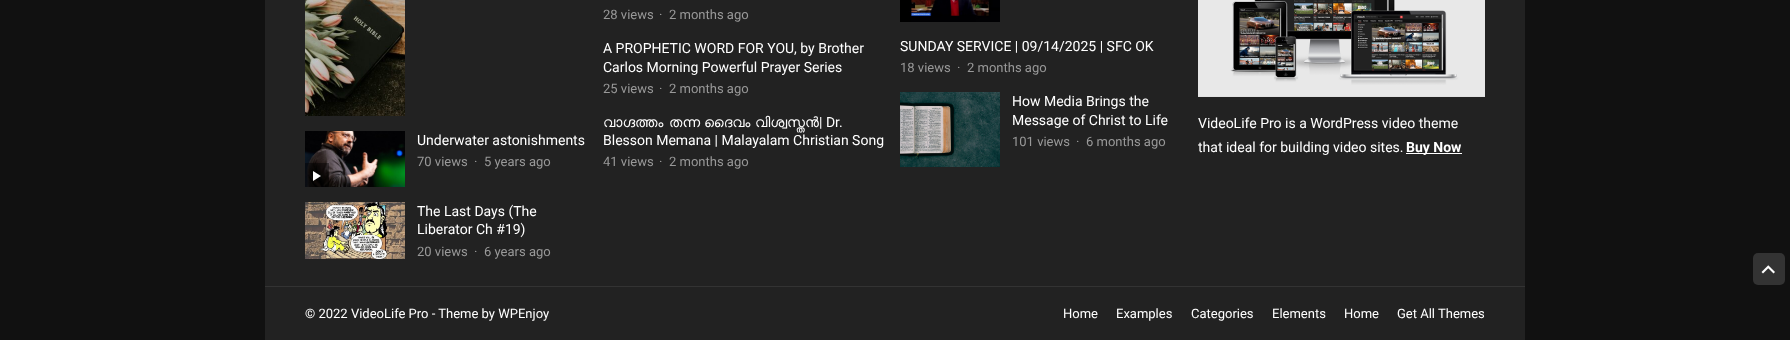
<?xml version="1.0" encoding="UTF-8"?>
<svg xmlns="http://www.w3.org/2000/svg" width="1790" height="340">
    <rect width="100%" height="100%" fill="#111111"/>
    <rect x="265" y="0" width="1260" height="340" fill="#222222"/>
    <rect x="265" y="286" width="1260" height="1" fill="#333333"/>
    <image x="305" y="0" width="100" height="116" href="img_01.png"/>
    <image x="305" y="131" width="100" height="56" href="img_02.png"/>
    <rect x="305" y="163" width="24" height="24" fill="#000000" fill-opacity="0.45"/>
    <path d="M 313 171 L 321 176 L 313 181 Z" fill="#FFFFFF"/>
    <text x="417" y="145" font-family="Roboto" font-size="14" fill="#FFFFFF">Underwater astonishments</text>
    <text x="417" y="166" font-family="Roboto" font-size="13" fill="#999999">70 views</text>
    <text x="474" y="166" font-family="Roboto" font-size="13" fill="#999999">·</text>
    <text x="484" y="166" font-family="Roboto" font-size="13" fill="#999999">5 years ago</text>
    <image x="305" y="202" width="100" height="57" href="img_03.png"/>
    <text font-family="Roboto" font-size="14" fill="#FFFFFF">
        <tspan x="417" y="216">The Last Days (The</tspan>
        <tspan x="417" y="234">Liberator Ch #19)</tspan>
    </text>
    <text x="417" y="256" font-family="Roboto" font-size="13" fill="#999999">20 views</text>
    <text x="474" y="256" font-family="Roboto" font-size="13" fill="#999999">·</text>
    <text x="484" y="256" font-family="Roboto" font-size="13" fill="#999999">6 years ago</text>
    <text x="603" y="19" font-family="Roboto" font-size="13" fill="#999999">28 views</text>
    <text x="659" y="19" font-family="Roboto" font-size="13" fill="#999999">·</text>
    <text x="669" y="19" font-family="Roboto" font-size="13" fill="#999999">2 months ago</text>
    <text font-family="Roboto" font-size="14" fill="#FFFFFF">
        <tspan x="603" y="53">A PROPHETIC WORD FOR YOU, by Brother</tspan>
        <tspan x="603" y="72">Carlos Morning Powerful Prayer Series</tspan>
    </text>
    <text x="603" y="93" font-family="Roboto" font-size="13" fill="#999999">25 views</text>
    <text x="659" y="93" font-family="Roboto" font-size="13" fill="#999999">·</text>
    <text x="669" y="93" font-family="Roboto" font-size="13" fill="#999999">2 months ago</text>
    <text x="603" y="127" font-family="FreeSans" font-size="14" fill="#FFFFFF">വാഗ്ദത്തം തന്ന</text>
    <text x="704" y="127" font-family="FreeSans" font-size="14" fill="#FFFFFF">ദൈവം</text>
    <text x="755" y="127" font-family="FreeSans" font-size="14" fill="#FFFFFF">വിശ്വസ്തൻ</text>
    <text x="819" y="127" font-family="Roboto" font-size="14" fill="#FFFFFF">| Dr.</text>
    <text x="603" y="145" font-family="Roboto" font-size="14" fill="#FFFFFF">Blesson Memana | Malayalam Christian Song</text>
    <text x="603" y="166" font-family="Roboto" font-size="13" fill="#999999">41 views</text>
    <text x="659" y="166" font-family="Roboto" font-size="13" fill="#999999">·</text>
    <text x="669" y="166" font-family="Roboto" font-size="13" fill="#999999">2 months ago</text>
    <image x="900" y="0" width="100" height="22" href="img_04.png"/>
    <text x="900" y="51" font-family="Roboto" font-size="14" fill="#FFFFFF">SUNDAY SERVICE | 09/14/2025 | SFC OK</text>
    <text x="900" y="72" font-family="Roboto" font-size="13" fill="#999999">18 views</text>
    <text x="957" y="72" font-family="Roboto" font-size="13" fill="#999999">·</text>
    <text x="967" y="72" font-family="Roboto" font-size="13" fill="#999999">2 months ago</text>
    <image x="900" y="92" width="100" height="75" href="img_05.png"/>
    <text font-family="Roboto" font-size="14" fill="#FFFFFF">
        <tspan x="1012" y="106">How Media Brings the</tspan>
        <tspan x="1012" y="125">Message of Christ to Life</tspan>
    </text>
    <text x="1012" y="146" font-family="Roboto" font-size="13" fill="#999999">101 views</text>
    <text x="1076" y="146" font-family="Roboto" font-size="13" fill="#999999">·</text>
    <text x="1086" y="146" font-family="Roboto" font-size="13" fill="#999999">6 months ago</text>
    <image x="1198" y="0" width="287" height="97" href="img_06.png"/>
    <text font-family="Roboto" font-size="14" fill="#FFFFFF">
        <tspan x="1198" y="128">VideoLife Pro is a WordPress video theme</tspan>
        <tspan x="1198" y="152">that ideal for building video sites.</tspan>
    </text>
    <rect x="1406" y="153" width="56" height="1" fill="#FFFFFF"/>
    <text x="1406" y="152" font-family="Roboto" font-size="14" font-weight="700" fill="#FFFFFF">Buy Now</text>
    <text x="305" y="318" font-family="Roboto" font-size="13" fill="#FFFFFF">© 2022 VideoLife Pro - Theme by WPEnjoy</text>
    <text x="1063" y="318" font-family="Roboto" font-size="13" fill="#FFFFFF">Home</text>
    <text x="1116" y="318" font-family="Roboto" font-size="13" fill="#FFFFFF">Examples</text>
    <text x="1191" y="318" font-family="Roboto" font-size="13" fill="#FFFFFF">Categories</text>
    <text x="1272" y="318" font-family="Roboto" font-size="13" fill="#FFFFFF">Elements</text>
    <text x="1344" y="318" font-family="Roboto" font-size="13" fill="#FFFFFF">Home</text>
    <text x="1397" y="318" font-family="Roboto" font-size="13" fill="#FFFFFF">Get All Themes</text>
    <rect x="1753" y="253" width="32" height="32" rx="5" fill="#333333"/>
    <image x="1761" y="265" width="14" height="9" href="img_07.png"/>
</svg>
